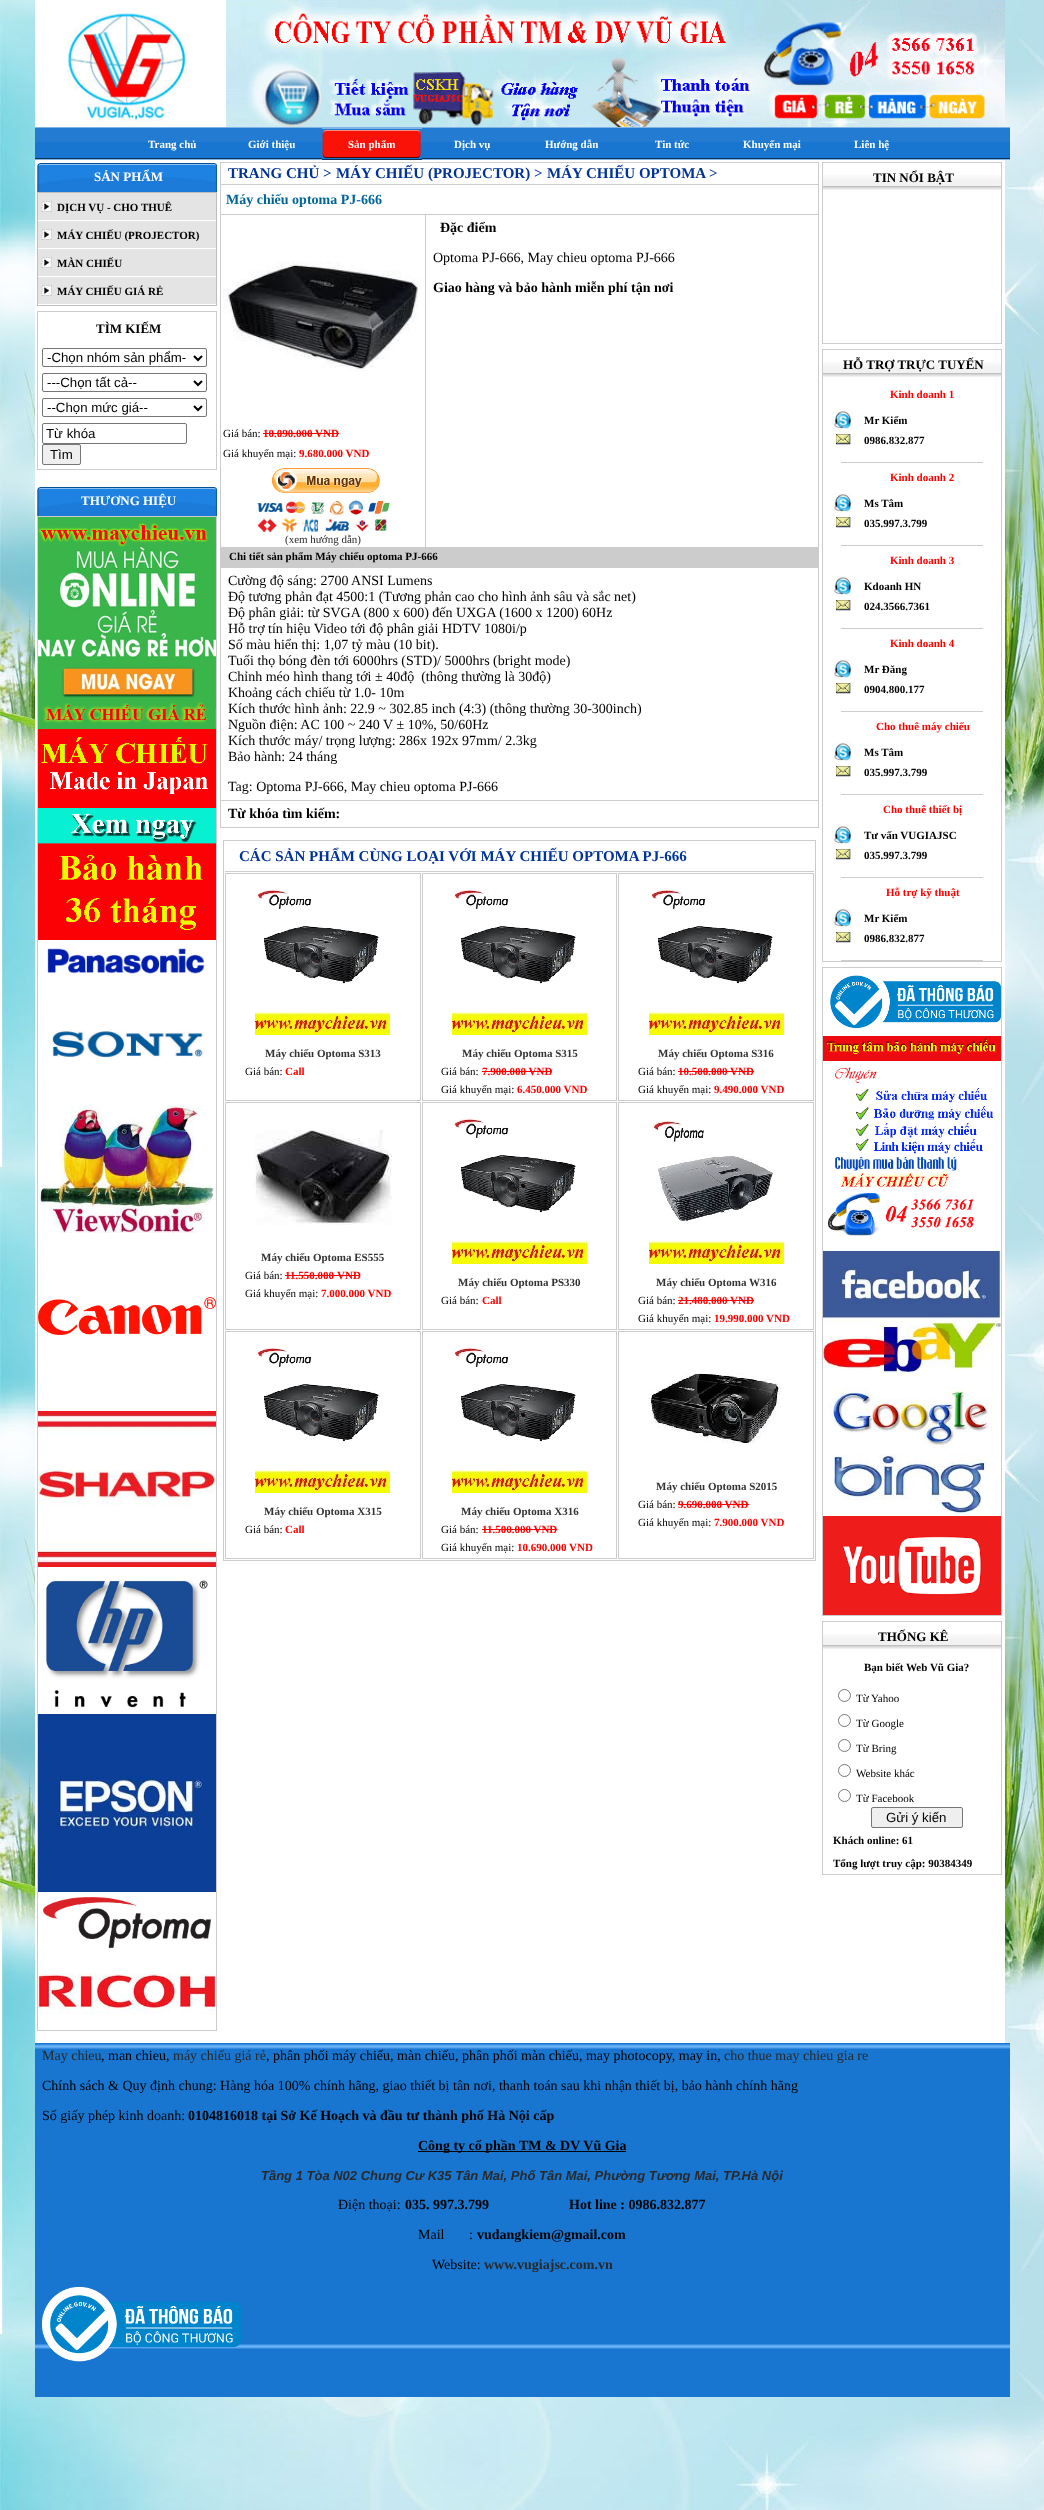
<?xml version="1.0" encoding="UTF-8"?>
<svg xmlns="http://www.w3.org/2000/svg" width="1044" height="2510">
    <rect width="100%" height="100%" fill="#FFFFFF"/>
    <image x="0" y="0" width="1044" height="2510" href="img_01.png"/>
    <image x="35" y="0" width="970" height="127" href="img_02.png"/>
    <image x="35" y="127" width="975" height="33" href="img_03.png"/>
    <text x="148" y="148" font-family="Liberation Serif" font-size="11" font-weight="700" fill="#FFFFFF">Trang chủ</text>
    <text x="248" y="148" font-family="Liberation Serif" font-size="11" font-weight="700" fill="#FFFFFF">Giới thiệu</text>
    <image x="322" y="128" width="100" height="32" href="img_04.png"/>
    <text x="348" y="148" font-family="Liberation Serif" font-size="11" font-weight="700" fill="#FFFFFF">Sản phẩm</text>
    <text x="454" y="148" font-family="Liberation Serif" font-size="11" font-weight="700" fill="#FFFFFF">Dịch vụ</text>
    <text x="545" y="148" font-family="Liberation Serif" font-size="11" font-weight="700" fill="#FFFFFF">Hướng dẫn</text>
    <text x="655" y="148" font-family="Liberation Serif" font-size="11" font-weight="700" fill="#FFFFFF">Tin tức</text>
    <text x="743" y="148" font-family="Liberation Serif" font-size="11" font-weight="700" fill="#FFFFFF">Khuyến mại</text>
    <text x="854" y="148" font-family="Liberation Serif" font-size="11" font-weight="700" fill="#FFFFFF">Liên hệ</text>
    <rect x="35" y="160" width="970" height="1883" fill="#FFFFFF"/>
    <image x="37" y="163" width="180" height="29" href="img_05.png"/>
    <text x="94" y="181" font-family="Liberation Serif" font-size="13" font-weight="700" fill="#FFFFFF">SẢN PHẨM</text>
    <rect x="37.5" y="192.5" width="179" height="113" fill="none" stroke="#BEBEBE"/>
    <rect x="38" y="193" width="178" height="27" fill="#E4E4E4"/>
    <image x="41" y="201" width="11" height="11" href="img_06.png"/>
    <text x="57" y="211" font-family="Liberation Serif" font-size="11" font-weight="700" fill="#000000">DỊCH VỤ - CHO THUÊ</text>
    <rect x="38" y="221" width="178" height="27" fill="#E4E4E4"/>
    <image x="41" y="229" width="11" height="11" href="img_06.png"/>
    <text x="57" y="239" font-family="Liberation Serif" font-size="11" font-weight="700" fill="#000000">MÁY CHIẾU (PROJECTOR)</text>
    <rect x="38" y="249" width="178" height="27" fill="#E4E4E4"/>
    <image x="41" y="257" width="11" height="11" href="img_06.png"/>
    <text x="57" y="267" font-family="Liberation Serif" font-size="11" font-weight="700" fill="#000000">MÀN CHIẾU</text>
    <rect x="38" y="277" width="178" height="27" fill="#E4E4E4"/>
    <image x="41" y="285" width="11" height="11" href="img_06.png"/>
    <text x="57" y="295" font-family="Liberation Serif" font-size="11" font-weight="700" fill="#000000">MÁY CHIẾU GIÁ RẺ</text>
    <rect x="37.5" y="311.5" width="179" height="158" fill="none" stroke="#CCCCCC"/>
    <text x="96" y="333" font-family="Liberation Serif" font-size="13" font-weight="700" fill="#000000">TÌM KIẾM</text>
    <rect x="42.5" y="348.5" width="164" height="18" rx="1.5" fill="none" stroke="#767676"/>
    <path d="M 194 356 L 198 360 L 202 356" fill="none" stroke="#000000" stroke-width="2"/>
    <text x="47" y="362" font-family="Liberation Sans" font-size="13.25" fill="#000000">-Chọn nhóm sản phẩm-</text>
    <rect x="42.5" y="373.5" width="164" height="18" rx="1.5" fill="none" stroke="#767676"/>
    <path d="M 194 381 L 198 385 L 202 381" fill="none" stroke="#000000" stroke-width="2"/>
    <text x="47" y="387" font-family="Liberation Sans" font-size="13.25" fill="#000000">---Chọn tất cả--</text>
    <rect x="42.5" y="398.5" width="164" height="18" rx="1.5" fill="none" stroke="#767676"/>
    <path d="M 194 406 L 198 410 L 202 406" fill="none" stroke="#000000" stroke-width="2"/>
    <text x="47" y="412" font-family="Liberation Sans" font-size="13.25" fill="#000000">--Chọn mức giá--</text>
    <rect x="42.5" y="423.5" width="144" height="20" rx="1.5" fill="none" stroke="#767676"/>
    <text x="46" y="438" font-family="Liberation Sans" font-size="13.25" fill="#000000">Từ khóa</text>
    <rect x="42.5" y="444.5" width="38" height="20" rx="1.5" fill="#EFEFEF" stroke="#767676"/>
    <text x="50" y="459" font-family="Liberation Sans" font-size="13.25" fill="#000000">Tìm</text>
    <image x="37" y="487" width="180" height="29" href="img_05.png"/>
    <text x="81" y="505" font-family="Liberation Serif" font-size="13" font-weight="700" fill="#FFFFFF">THƯƠNG HIỆU</text>
    <rect x="37.5" y="516.5" width="179" height="1514" fill="none" stroke="#CCCCCC"/>
    <image x="38" y="517" width="178" height="212" href="img_07.png"/>
    <image x="38" y="729" width="178" height="211" href="img_08.png"/>
    <image x="47" y="948" width="158" height="26" href="img_09.png"/>
    <image x="50" y="1030" width="154" height="28" href="img_10.png"/>
    <image x="38" y="1105" width="178" height="128" href="img_11.png"/>
    <image x="38" y="1297" width="178" height="38" href="img_12.png"/>
    <image x="38" y="1411" width="178" height="156" href="img_13.png"/>
    <image x="46" y="1580" width="162" height="128" href="img_14.png"/>
    <image x="38" y="1714" width="178" height="178" href="img_15.png"/>
    <image x="43" y="1897" width="168" height="51" href="img_16.png"/>
    <image x="38" y="1973" width="178" height="42" href="img_17.png"/>
    <rect x="220" y="162" width="599" height="1" fill="#CCCCCC"/>
    <rect x="818" y="162" width="1" height="666" fill="#CCCCCC"/>
    <rect x="220" y="827" width="599" height="1" fill="#CCCCCC"/>
    <rect x="220" y="162" width="1" height="666" fill="#CCCCCC"/>
    <text x="228" y="178" font-family="Liberation Serif" font-size="15" font-weight="700" fill="#003399">TRANG CHỦ &gt;</text>
    <text x="336" y="178" font-family="Liberation Serif" font-size="15" font-weight="700" fill="#003399">MÁY CHIẾU (PROJECTOR) &gt;</text>
    <text x="547" y="178" font-family="Liberation Serif" font-size="15" font-weight="700" fill="#003399">MÁY CHIẾU OPTOMA &gt;</text>
    <rect x="220" y="184" width="599" height="1" fill="#CCCCCC"/>
    <text x="226" y="204" font-family="Liberation Serif" font-size="14" font-weight="700" fill="#006699">Máy chiếu optoma PJ-666</text>
    <rect x="425" y="214" width="394" height="1" fill="#CCCCCC"/>
    <rect x="220" y="547" width="599" height="1" fill="#CCCCCC"/>
    <rect x="425" y="214" width="1" height="334" fill="#CCCCCC"/>
    <text x="440" y="232" font-family="Liberation Serif" font-size="14" font-weight="700" fill="#000000">Đặc điểm</text>
    <text x="433" y="262" font-family="Liberation Serif" font-size="14" fill="#000000">Optoma PJ-666, May chieu optoma PJ-666</text>
    <text x="433" y="292" font-family="Liberation Serif" font-size="14" font-weight="700" fill="#000000">Giao hàng và bảo hành miễn phí tận nơi</text>
    <rect x="220" y="214" width="206" height="1" fill="#CCCCCC"/>
    <image x="223" y="261" width="198" height="110" href="img_18.png"/>
    <text x="223" y="437" font-family="Liberation Serif" font-size="11" fill="#000000">Giá bán:</text>
    <text x="263" y="437" font-family="Liberation Serif" font-size="11" font-weight="700" fill="#FF0000">10.090.000 VND</text>
    <rect x="263" y="433" width="76" height="1" fill="#FF0000"/>
    <text x="223" y="457" font-family="Liberation Serif" font-size="11" fill="#000000">Giá khuyến mại:</text>
    <text x="299" y="457" font-family="Liberation Serif" font-size="11" font-weight="700" fill="#FF0000">9.680.000 VND</text>
    <image x="257" y="468" width="133" height="64" href="img_19.png"/>
    <text x="285" y="543" font-family="Liberation Serif" font-size="11" fill="#292929">(xem hướng dẫn)</text>
    <rect x="221" y="548" width="597" height="20" fill="#CCCCCC"/>
    <text x="229" y="560" font-family="Liberation Serif" font-size="11" font-weight="700" fill="#000000">Chi tiết sản phẩm Máy chiếu optoma PJ-666</text>
    <text font-family="Liberation Serif" font-size="14" fill="#000000" xml:space="preserve"><tspan x="228" y="585">Cường độ sáng: 2700 ANSI Lumens</tspan><tspan x="228" y="601">Độ tương phản đạt 4500:1 (Tương phản cao cho hình ảnh sâu và sắc net)</tspan><tspan x="228" y="617">Độ phân giải: từ SVGA (800 x 600) đến UXGA (1600 x 1200) 60Hz</tspan><tspan x="228" y="633">Hỗ trợ tín hiệu Video tới độ phân giải HDTV 1080i/p</tspan><tspan x="228" y="649">Số màu hiển thị: 1,07 tỷ màu (10 bit).</tspan><tspan x="228" y="665">Tuổi thọ bóng đèn tới 6000hrs (STD)/ 5000hrs (bright mode)</tspan><tspan x="228" y="681">Chỉnh méo hình thang tới ± 40độ  (thông thường là 30độ)</tspan><tspan x="228" y="697">Khoảng cách chiếu từ 1.0- 10m</tspan><tspan x="228" y="713">Kích thước hình ảnh: 22.9 ~ 302.85 inch (4:3) (thông thường 30-300inch)</tspan><tspan x="228" y="729">Nguồn điện: AC 100 ~ 240 V ± 10%, 50/60Hz</tspan><tspan x="228" y="745">Kích thước máy/ trọng lượng: 286x 192x 97mm/ 2.3kg</tspan><tspan x="228" y="761">Bảo hành: 24 tháng</tspan></text>
    <text x="228" y="791" font-family="Liberation Serif" font-size="14" fill="#000000">Tag: Optoma PJ-666, May chieu optoma PJ-666</text>
    <rect x="220" y="800" width="599" height="1" fill="#CCCCCC"/>
    <text x="228" y="818" font-family="Liberation Serif" font-size="14" font-weight="700" fill="#000000">Từ khóa tìm kiếm:</text>
    <rect x="223.5" y="840.5" width="592" height="720" fill="none" stroke="#CCCCCC"/>
    <rect x="225" y="871" width="589" height="1" fill="#CCCCCC"/>
    <text x="239" y="861" font-family="Liberation Serif" font-size="15" font-weight="700" fill="#003399">CÁC SẢN PHẨM CÙNG LOẠI VỚI MÁY CHIẾU OPTOMA PJ-666</text>
    <rect x="225.5" y="873.5" width="195" height="227" fill="none" stroke="#CCCCCC"/>
    <image x="255" y="889" width="135" height="146" href="img_20.png"/>
    <text x="265" y="1057" font-family="Liberation Serif" font-size="11" font-weight="700" fill="#333333">Máy chiếu Optoma S313</text>
    <text x="245" y="1075" font-family="Liberation Serif" font-size="11" fill="#000000">Giá bán:</text>
    <text x="285" y="1075" font-family="Liberation Serif" font-size="11" font-weight="700" fill="#FF0000">Call</text>
    <rect x="422.5" y="873.5" width="194" height="227" fill="none" stroke="#CCCCCC"/>
    <image x="452" y="889" width="135" height="146" href="img_20.png"/>
    <text x="462" y="1057" font-family="Liberation Serif" font-size="11" font-weight="700" fill="#333333">Máy chiếu Optoma S315</text>
    <text x="441" y="1075" font-family="Liberation Serif" font-size="11" fill="#000000">Giá bán:</text>
    <text x="482" y="1075" font-family="Liberation Serif" font-size="11" font-weight="700" fill="#FF0000">7.900.000 VND</text>
    <rect x="482" y="1071" width="70" height="1" fill="#FF0000"/>
    <text x="441" y="1093" font-family="Liberation Serif" font-size="11" fill="#000000">Giá khuyến mại:</text>
    <text x="517" y="1093" font-family="Liberation Serif" font-size="11" font-weight="700" fill="#FF0000">6.450.000 VND</text>
    <rect x="618.5" y="873.5" width="195" height="227" fill="none" stroke="#CCCCCC"/>
    <image x="649" y="889" width="135" height="146" href="img_20.png"/>
    <text x="658" y="1057" font-family="Liberation Serif" font-size="11" font-weight="700" fill="#333333">Máy chiếu Optoma S316</text>
    <text x="638" y="1075" font-family="Liberation Serif" font-size="11" fill="#000000">Giá bán:</text>
    <text x="678" y="1075" font-family="Liberation Serif" font-size="11" font-weight="700" fill="#FF0000">10.500.000 VND</text>
    <rect x="678" y="1071" width="76" height="1" fill="#FF0000"/>
    <text x="638" y="1093" font-family="Liberation Serif" font-size="11" fill="#000000">Giá khuyến mại:</text>
    <text x="714" y="1093" font-family="Liberation Serif" font-size="11" font-weight="700" fill="#FF0000">9.490.000 VND</text>
    <rect x="225.5" y="1102.5" width="195" height="227" fill="none" stroke="#CCCCCC"/>
    <image x="254" y="1130" width="138" height="96" href="img_21.png"/>
    <text x="261" y="1261" font-family="Liberation Serif" font-size="11" font-weight="700" fill="#333333">Máy chiếu Optoma ES555</text>
    <text x="245" y="1279" font-family="Liberation Serif" font-size="11" fill="#000000">Giá bán:</text>
    <text x="285" y="1279" font-family="Liberation Serif" font-size="11" font-weight="700" fill="#FF0000">11.550.000</text>
    <rect x="285" y="1275" width="52" height="1" fill="#FF0000"/>
    <text x="337" y="1279" font-family="Liberation Serif" font-size="11" font-weight="700" fill="#FF0000">VND</text>
    <rect x="337" y="1275" width="23" height="1" fill="#FF0000"/>
    <text x="245" y="1297" font-family="Liberation Serif" font-size="11" fill="#000000">Giá khuyến mại:</text>
    <text x="321" y="1297" font-family="Liberation Serif" font-size="11" font-weight="700" fill="#FF0000">7.000.000 VND</text>
    <rect x="422.5" y="1102.5" width="194" height="227" fill="none" stroke="#CCCCCC"/>
    <image x="452" y="1118" width="135" height="146" href="img_20.png"/>
    <text x="458" y="1286" font-family="Liberation Serif" font-size="11" font-weight="700" fill="#333333">Máy chiếu Optoma PS330</text>
    <text x="441" y="1304" font-family="Liberation Serif" font-size="11" fill="#000000">Giá bán:</text>
    <text x="482" y="1304" font-family="Liberation Serif" font-size="11" font-weight="700" fill="#FF0000">Call</text>
    <rect x="618.5" y="1102.5" width="195" height="227" fill="none" stroke="#CCCCCC"/>
    <image x="649" y="1121" width="135" height="143" href="img_22.png"/>
    <text x="656" y="1286" font-family="Liberation Serif" font-size="11" font-weight="700" fill="#333333">Máy chiếu Optoma W316</text>
    <text x="638" y="1304" font-family="Liberation Serif" font-size="11" fill="#000000">Giá bán:</text>
    <text x="678" y="1304" font-family="Liberation Serif" font-size="11" font-weight="700" fill="#FF0000">21.480.000 VND</text>
    <rect x="678" y="1300" width="76" height="1" fill="#FF0000"/>
    <text x="638" y="1322" font-family="Liberation Serif" font-size="11" fill="#000000">Giá khuyến mại:</text>
    <text x="714" y="1322" font-family="Liberation Serif" font-size="11" font-weight="700" fill="#FF0000">19.990.000 VND</text>
    <rect x="225.5" y="1331.5" width="195" height="227" fill="none" stroke="#CCCCCC"/>
    <image x="255" y="1347" width="135" height="146" href="img_20.png"/>
    <text x="264" y="1515" font-family="Liberation Serif" font-size="11" font-weight="700" fill="#333333">Máy chiếu Optoma X315</text>
    <text x="245" y="1533" font-family="Liberation Serif" font-size="11" fill="#000000">Giá bán:</text>
    <text x="285" y="1533" font-family="Liberation Serif" font-size="11" font-weight="700" fill="#FF0000">Call</text>
    <rect x="422.5" y="1331.5" width="194" height="227" fill="none" stroke="#CCCCCC"/>
    <image x="452" y="1347" width="135" height="146" href="img_20.png"/>
    <text x="461" y="1515" font-family="Liberation Serif" font-size="11" font-weight="700" fill="#333333">Máy chiếu Optoma X316</text>
    <text x="441" y="1533" font-family="Liberation Serif" font-size="11" fill="#000000">Giá bán:</text>
    <text x="482" y="1533" font-family="Liberation Serif" font-size="11" font-weight="700" fill="#FF0000">11.500.000 VND</text>
    <rect x="482" y="1529" width="75" height="1" fill="#FF0000"/>
    <text x="441" y="1551" font-family="Liberation Serif" font-size="11" fill="#000000">Giá khuyến mại:</text>
    <text x="517" y="1551" font-family="Liberation Serif" font-size="11" font-weight="700" fill="#FF0000">10.690.000 VND</text>
    <rect x="618.5" y="1331.5" width="195" height="227" fill="none" stroke="#CCCCCC"/>
    <image x="648" y="1373" width="133" height="70" href="img_23.png"/>
    <text x="656" y="1490" font-family="Liberation Serif" font-size="11" font-weight="700" fill="#333333">Máy chiếu Optoma S2015</text>
    <text x="638" y="1508" font-family="Liberation Serif" font-size="11" fill="#000000">Giá bán:</text>
    <text x="678" y="1508" font-family="Liberation Serif" font-size="11" font-weight="700" fill="#FF0000">9.690.000 VND</text>
    <rect x="678" y="1504" width="71" height="1" fill="#FF0000"/>
    <text x="638" y="1526" font-family="Liberation Serif" font-size="11" fill="#000000">Giá khuyến mại:</text>
    <text x="714" y="1526" font-family="Liberation Serif" font-size="11" font-weight="700" fill="#FF0000">7.900.000 VND</text>
    <rect x="822.5" y="162.5" width="179" height="181" fill="none" stroke="#CCCCCC"/>
    <image x="823" y="175" width="178" height="15" href="img_24.png"/>
    <text x="873" y="182" font-family="Liberation Serif" font-size="13" font-weight="700" fill="#000000">TIN NỔI BẬT</text>
    <rect x="822.5" y="349.5" width="179" height="612" fill="none" stroke="#CCCCCC"/>
    <image x="823" y="362" width="178" height="15" href="img_24.png"/>
    <text x="843" y="369" font-family="Liberation Serif" font-size="13" font-weight="700" fill="#000000">HỖ TRỢ TRỰC TUYẾN</text>
    <text x="890" y="398" font-family="Liberation Serif" font-size="11" font-weight="700" fill="#FF0000">Kinh doanh 1</text>
    <image x="833" y="410" width="20" height="20" href="img_25.png"/>
    <text x="864" y="424" font-family="Liberation Serif" font-size="11" font-weight="700" fill="#000000">Mr Kiểm</text>
    <image x="836" y="434" width="15" height="11" href="img_26.png"/>
    <text x="864" y="444" font-family="Liberation Serif" font-size="11" font-weight="700" fill="#000000">0986.832.877</text>
    <rect x="841" y="462" width="142" height="1" fill="#CCCCCC"/>
    <text x="890" y="481" font-family="Liberation Serif" font-size="11" font-weight="700" fill="#FF0000">Kinh doanh 2</text>
    <image x="833" y="493" width="20" height="20" href="img_25.png"/>
    <text x="864" y="507" font-family="Liberation Serif" font-size="11" font-weight="700" fill="#000000">Ms Tâm</text>
    <image x="836" y="517" width="15" height="11" href="img_26.png"/>
    <text x="864" y="527" font-family="Liberation Serif" font-size="11" font-weight="700" fill="#000000">035.997.3.799</text>
    <rect x="841" y="545" width="142" height="1" fill="#CCCCCC"/>
    <text x="890" y="564" font-family="Liberation Serif" font-size="11" font-weight="700" fill="#FF0000">Kinh doanh 3</text>
    <image x="833" y="576" width="20" height="20" href="img_25.png"/>
    <text x="864" y="590" font-family="Liberation Serif" font-size="11" font-weight="700" fill="#000000">Kdoanh HN</text>
    <image x="836" y="600" width="15" height="11" href="img_26.png"/>
    <text x="864" y="610" font-family="Liberation Serif" font-size="11" font-weight="700" fill="#000000">024.3566.7361</text>
    <rect x="841" y="628" width="142" height="1" fill="#CCCCCC"/>
    <text x="890" y="647" font-family="Liberation Serif" font-size="11" font-weight="700" fill="#FF0000">Kinh doanh 4</text>
    <image x="833" y="659" width="20" height="20" href="img_25.png"/>
    <text x="864" y="673" font-family="Liberation Serif" font-size="11" font-weight="700" fill="#000000">Mr Đăng</text>
    <image x="836" y="683" width="15" height="11" href="img_26.png"/>
    <text x="864" y="693" font-family="Liberation Serif" font-size="11" font-weight="700" fill="#000000">0904.800.177</text>
    <rect x="841" y="711" width="142" height="1" fill="#CCCCCC"/>
    <text x="876" y="730" font-family="Liberation Serif" font-size="11" font-weight="700" fill="#FF0000">Cho thuê máy chiếu</text>
    <image x="833" y="742" width="20" height="20" href="img_25.png"/>
    <text x="864" y="756" font-family="Liberation Serif" font-size="11" font-weight="700" fill="#000000">Ms Tâm</text>
    <image x="836" y="766" width="15" height="11" href="img_26.png"/>
    <text x="864" y="776" font-family="Liberation Serif" font-size="11" font-weight="700" fill="#000000">035.997.3.799</text>
    <rect x="841" y="794" width="142" height="1" fill="#CCCCCC"/>
    <text x="883" y="813" font-family="Liberation Serif" font-size="11" font-weight="700" fill="#FF0000">Cho thuê thiết bị</text>
    <image x="833" y="825" width="20" height="20" href="img_25.png"/>
    <text x="864" y="839" font-family="Liberation Serif" font-size="11" font-weight="700" fill="#000000">Tư vấn VUGIAJSC</text>
    <image x="836" y="849" width="15" height="11" href="img_26.png"/>
    <text x="864" y="859" font-family="Liberation Serif" font-size="11" font-weight="700" fill="#000000">035.997.3.799</text>
    <rect x="841" y="877" width="142" height="1" fill="#CCCCCC"/>
    <text x="886" y="896" font-family="Liberation Serif" font-size="11" font-weight="700" fill="#FF0000">Hỗ trợ kỹ thuật</text>
    <image x="833" y="908" width="20" height="20" href="img_25.png"/>
    <text x="864" y="922" font-family="Liberation Serif" font-size="11" font-weight="700" fill="#000000">Mr Kiểm</text>
    <image x="836" y="932" width="15" height="11" href="img_26.png"/>
    <text x="864" y="942" font-family="Liberation Serif" font-size="11" font-weight="700" fill="#000000">0986.832.877</text>
    <rect x="841" y="960" width="142" height="1" fill="#CCCCCC"/>
    <rect x="822.5" y="967.5" width="179" height="648" fill="none" stroke="#CCCCCC"/>
    <image x="830" y="975" width="171" height="54" href="img_27.png"/>
    <image x="823" y="1036" width="178" height="200" href="img_28.png"/>
    <image x="823" y="1251" width="178" height="125" href="img_29.png"/>
    <image x="827" y="1387" width="165" height="129" href="img_30.png"/>
    <image x="823" y="1516" width="178" height="99" href="img_31.png"/>
    <rect x="822.5" y="1621.5" width="179" height="253" fill="none" stroke="#CCCCCC"/>
    <image x="823" y="1634" width="178" height="15" href="img_24.png"/>
    <text x="878" y="1641" font-family="Liberation Serif" font-size="13" font-weight="700" fill="#000000">THỐNG KÊ</text>
    <text x="864" y="1671" font-family="Liberation Serif" font-size="11" font-weight="700" fill="#000000">Bạn biết Web Vũ Gia?</text>
    <circle cx="844.5" cy="1695.5" r="6" fill="none" stroke="#767676"/>
    <text x="856" y="1702" font-family="Liberation Serif" font-size="11" fill="#000000">Từ Yahoo</text>
    <circle cx="844.5" cy="1720.5" r="6" fill="none" stroke="#767676"/>
    <text x="856" y="1727" font-family="Liberation Serif" font-size="11" fill="#000000">Từ Google</text>
    <circle cx="844.5" cy="1745.5" r="6" fill="none" stroke="#767676"/>
    <text x="856" y="1752" font-family="Liberation Serif" font-size="11" fill="#000000">Từ Bring</text>
    <circle cx="844.5" cy="1770.5" r="6" fill="none" stroke="#767676"/>
    <text x="856" y="1777" font-family="Liberation Serif" font-size="11" fill="#000000">Website khác</text>
    <circle cx="844.5" cy="1795.5" r="6" fill="none" stroke="#767676"/>
    <text x="856" y="1802" font-family="Liberation Serif" font-size="11" fill="#000000">Từ Facebook</text>
    <rect x="871.5" y="1807.5" width="91" height="20" rx="1.5" fill="#EFEFEF" stroke="#767676"/>
    <text x="886" y="1822" font-family="Liberation Sans" font-size="13.25" fill="#000000">Gửi ý kiến</text>
    <text x="833" y="1844" font-family="Liberation Serif" font-size="11" font-weight="700" fill="#000000">Khách online: 61</text>
    <text x="833" y="1867" font-family="Liberation Serif" font-size="11" font-weight="700" fill="#000000">Tổng lượt truy cập: 90384349</text>
    <image x="35" y="2043" width="975" height="354" href="img_32.png"/>
    <text x="42" y="2060" font-family="Liberation Serif" font-size="14" fill="#292929">May chieu</text>
    <text x="101" y="2060" font-family="Liberation Serif" font-size="14" fill="#000000">, man chieu,</text>
    <text x="173" y="2060" font-family="Liberation Serif" font-size="14" fill="#292929">máy chiếu giá rẻ</text>
    <text x="266" y="2060" font-family="Liberation Serif" font-size="14" fill="#000000">, phân phối máy chiếu, màn chiếu, phân phối màn chiếu, may photocopy, may in,</text>
    <text x="724" y="2060" font-family="Liberation Serif" font-size="14" fill="#292929">cho thue may chieu gia re</text>
    <text x="42" y="2090" font-family="Liberation Serif" font-size="14" fill="#000000">Chính sách &amp; Quy định chung: Hàng hóa 100% chính hãng, giao thiết bị tân nơi, thanh toán sau khi nhận thiết bị, bảo hành chính hãng</text>
    <text x="42" y="2120" font-family="Liberation Serif" font-size="14" fill="#000000">Số giấy phép kinh doanh:</text>
    <text x="188" y="2120" font-family="Liberation Serif" font-size="14" font-weight="700" fill="#000000">0104816018 tại Sở Kế Hoạch và đầu tư thành phố Hà Nội cấp</text>
    <rect x="418" y="2151" width="208" height="1" fill="#000000"/>
    <text x="418" y="2150" font-family="Liberation Serif" font-size="14" font-weight="700" fill="#000000">Công ty cổ phần TM &amp; DV Vũ Gia</text>
    <text x="261" y="2180" font-family="Liberation Sans" font-size="13" font-weight="700" font-style="italic" fill="#292929">Tầng 1 Tòa N02 Chung Cư K35 Tân Mai, Phố Tân Mai, Phường Tương Mai, TP.Hà Nội</text>
    <text x="338" y="2209" font-family="Liberation Serif" font-size="14" fill="#000000">Điện thoại:</text>
    <text x="405" y="2209" font-family="Liberation Serif" font-size="14" font-weight="700" fill="#000000">035. 997.3.799</text>
    <text x="569" y="2209" font-family="Liberation Serif" font-size="14" font-weight="700" fill="#000000">Hot line : 0986.832.877</text>
    <text x="418" y="2239" font-family="Liberation Serif" font-size="14" fill="#000000" xml:space="preserve">Mail       :</text>
    <text x="477" y="2239" font-family="Liberation Serif" font-size="14" font-weight="700" fill="#000000">vudangkiem@gmail.com</text>
    <text x="432" y="2269" font-family="Liberation Serif" font-size="14" fill="#000000">Website:</text>
    <text x="484" y="2269" font-family="Liberation Serif" font-size="14" font-weight="700" fill="#292929">www.vugiajsc.com.vn</text>
    <image x="42" y="2287" width="199" height="75" href="img_33.png"/>
</svg>
